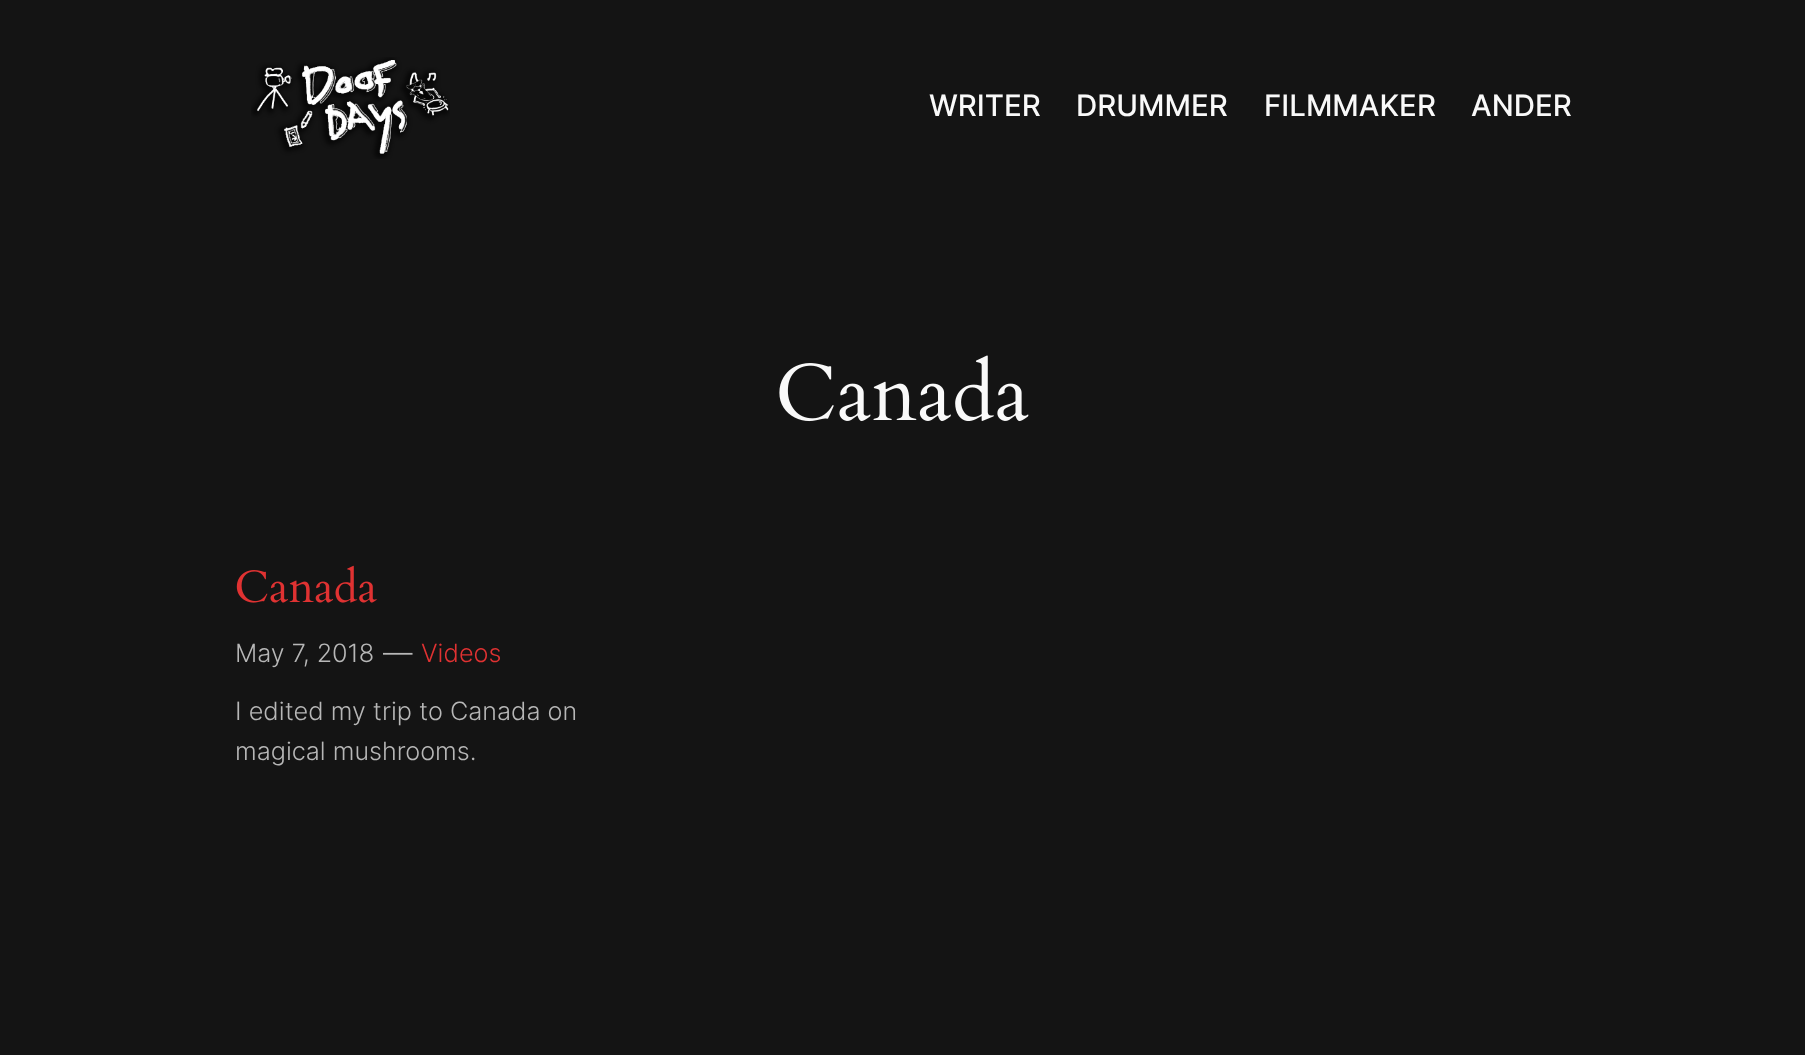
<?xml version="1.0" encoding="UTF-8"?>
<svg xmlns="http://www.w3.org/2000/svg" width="1805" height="1055">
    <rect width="100%" height="100%" fill="#141414"/>
    <image x="251" y="57" width="199" height="102" href="img_01.png"/>
    <text x="929" y="116" font-family="Inter" font-size="29.5" font-weight="500" fill="#F9F9F9">WRITER</text>
    <text x="1076" y="116" font-family="Inter" font-size="29.5" font-weight="500" fill="#F9F9F9">DRUMMER</text>
    <text x="1264" y="116" font-family="Inter" font-size="29.5" font-weight="500" fill="#F9F9F9">FILMMAKER</text>
    <text x="1471" y="116" font-family="Inter" font-size="29.5" font-weight="500" fill="#F9F9F9">ANDER</text>
    <image x="779" y="355" width="250" height="67" href="img_02.png"/>
    <image x="236" y="565" width="141" height="38" href="img_03.png"/>
    <text x="235" y="662" font-family="Inter" font-size="25.25" font-weight="300" fill="#B7B7B7">May 7, 2018</text>
    <text x="383" y="663" font-family="Inter" font-size="29.5" font-weight="300" fill="#B7B7B7">—</text>
    <text x="421" y="662" font-family="Inter" font-size="25.25" font-weight="300" fill="#E03232">Videos</text>
    <text font-family="Inter" font-size="25.25" font-weight="300" fill="#B7B7B7">
        <tspan x="235" y="720">I edited my trip to Canada on</tspan>
        <tspan x="235" y="760">magical mushrooms.</tspan>
    </text>
</svg>
